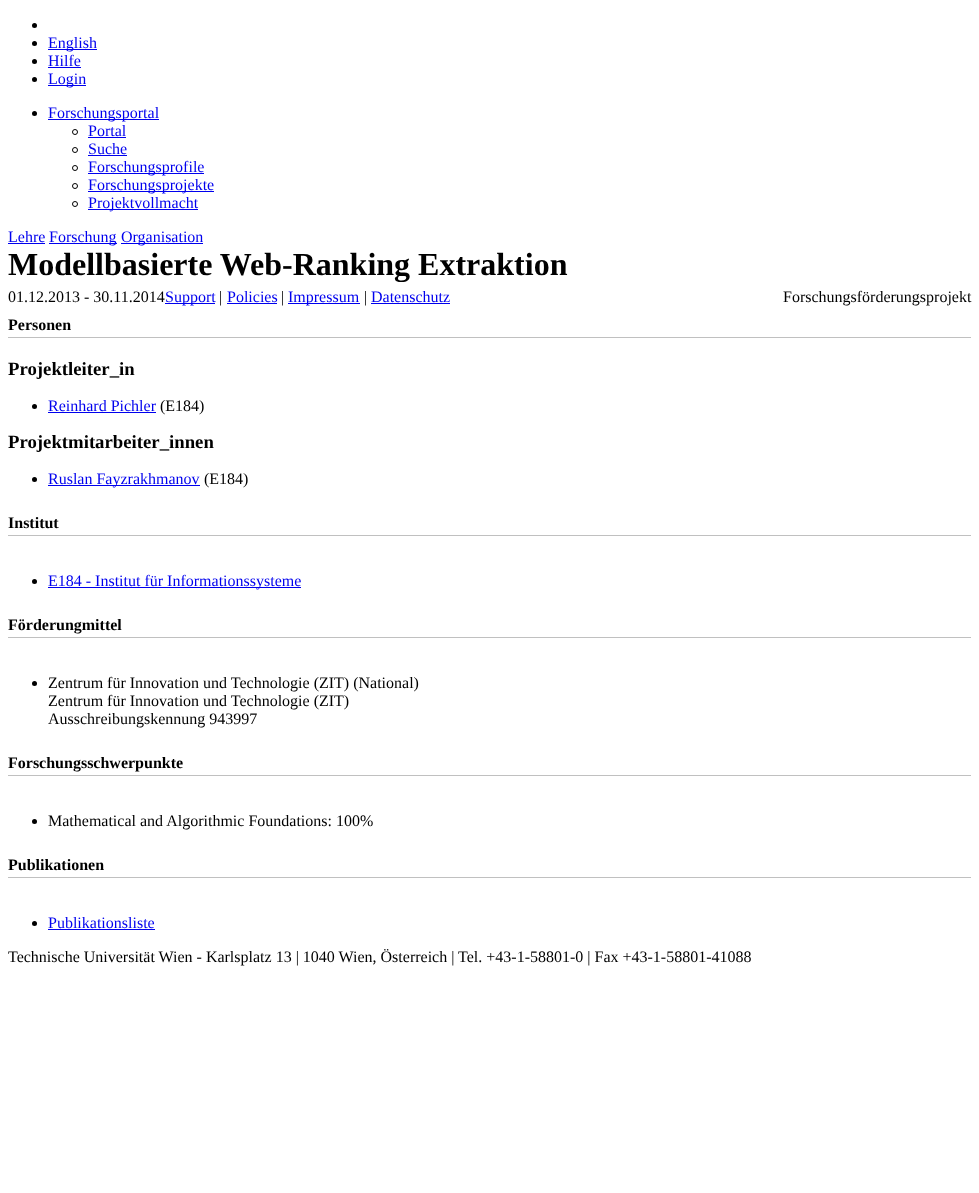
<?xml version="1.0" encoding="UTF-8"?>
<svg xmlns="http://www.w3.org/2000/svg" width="979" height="1193">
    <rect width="100%" height="100%" fill="#FFFFFF"/>
    <circle cx="34.5" cy="25.5" r="2.5" fill="#000000"/>
    <circle cx="34.5" cy="43.5" r="2.5" fill="#000000"/>
    <rect x="48" y="49" width="49" height="1" fill="#0000EE"/>
    <text x="48" y="48" font-family="Liberation Serif" font-size="16" fill="#0000EE">English</text>
    <circle cx="34.5" cy="61.5" r="2.5" fill="#000000"/>
    <text x="48" y="66" font-family="Liberation Serif" font-size="16" fill="#0000EE">Hilfe</text>
    <rect x="48" y="67" width="33" height="1" fill="#0000EE"/>
    <circle cx="34.5" cy="79.5" r="2.5" fill="#000000"/>
    <rect x="48" y="85" width="38" height="1" fill="#0000EE"/>
    <text x="48" y="84" font-family="Liberation Serif" font-size="16" fill="#0000EE">Login</text>
    <circle cx="34.5" cy="113.5" r="2.5" fill="#000000"/>
    <rect x="48" y="119" width="111" height="1" fill="#0000EE"/>
    <text x="48" y="118" font-family="Liberation Serif" font-size="16" fill="#0000EE">Forschungsportal</text>
    <circle cx="75" cy="132" r="2.5" fill="none" stroke="#000000"/>
    <text x="88" y="136" font-family="Liberation Serif" font-size="16" fill="#0000EE">Portal</text>
    <rect x="88" y="137" width="38" height="1" fill="#0000EE"/>
    <circle cx="75" cy="150" r="2.5" fill="none" stroke="#000000"/>
    <text x="88" y="154" font-family="Liberation Serif" font-size="16" fill="#0000EE">Suche</text>
    <rect x="88" y="155" width="39" height="1" fill="#0000EE"/>
    <circle cx="75" cy="168" r="2.5" fill="none" stroke="#000000"/>
    <rect x="88" y="173" width="116" height="1" fill="#0000EE"/>
    <text x="88" y="172" font-family="Liberation Serif" font-size="16" fill="#0000EE">Forschungsprofile</text>
    <circle cx="75" cy="186" r="2.5" fill="none" stroke="#000000"/>
    <rect x="88" y="191" width="126" height="1" fill="#0000EE"/>
    <text x="88" y="190" font-family="Liberation Serif" font-size="16" fill="#0000EE">Forschungsprojekte</text>
    <circle cx="75" cy="204" r="2.5" fill="none" stroke="#000000"/>
    <rect x="88" y="209" width="110" height="1" fill="#0000EE"/>
    <text x="88" y="208" font-family="Liberation Serif" font-size="16" fill="#0000EE">Projektvollmacht</text>
    <text x="8" y="242" font-family="Liberation Serif" font-size="16" fill="#0000EE">Lehre</text>
    <rect x="8" y="243" width="37" height="1" fill="#0000EE"/>
    <rect x="49" y="243" width="68" height="1" fill="#0000EE"/>
    <text x="49" y="242" font-family="Liberation Serif" font-size="16" fill="#0000EE">Forschung</text>
    <rect x="121" y="243" width="82" height="1" fill="#0000EE"/>
    <text x="121" y="242" font-family="Liberation Serif" font-size="16" fill="#0000EE">Organisation</text>
    <text x="8" y="275" font-family="Liberation Serif" font-size="32" font-weight="700" fill="#000000">Modellbasierte Web-Ranking Extraktion</text>
    <text x="8" y="302" font-family="Liberation Serif" font-size="16" fill="#000000">01.12.2013 - 30.11.2014</text>
    <text x="783" y="302" font-family="Liberation Serif" font-size="16" fill="#000000">Forschungsförderungsprojekt</text>
    <rect x="8" y="337" width="963" height="1" fill="#C0C0C0"/>
    <text x="8" y="330" font-family="Liberation Serif" font-size="16" font-weight="700" fill="#000000">Personen</text>
    <text x="8" y="375" font-family="Liberation Serif" font-size="18.75" font-weight="700" fill="#000000">Projektleiter_in</text>
    <circle cx="34.5" cy="406.5" r="2.5" fill="#000000"/>
    <text x="48" y="411" font-family="Liberation Serif" font-size="16" fill="#0000EE">Reinhard Pichler</text>
    <rect x="48" y="412" width="108" height="1" fill="#0000EE"/>
    <text x="160" y="411" font-family="Liberation Serif" font-size="16" fill="#000000">(E184)</text>
    <text x="8" y="448" font-family="Liberation Serif" font-size="18.75" font-weight="700" fill="#000000">Projektmitarbeiter_innen</text>
    <circle cx="34.5" cy="479.5" r="2.5" fill="#000000"/>
    <rect x="48" y="485" width="152" height="1" fill="#0000EE"/>
    <text x="48" y="484" font-family="Liberation Serif" font-size="16" fill="#0000EE">Ruslan Fayzrakhmanov</text>
    <text x="204" y="484" font-family="Liberation Serif" font-size="16" fill="#000000">(E184)</text>
    <rect x="8" y="535" width="963" height="1" fill="#C0C0C0"/>
    <text x="8" y="528" font-family="Liberation Serif" font-size="16" font-weight="700" fill="#000000">Institut</text>
    <circle cx="34.5" cy="581.5" r="2.5" fill="#000000"/>
    <rect x="48" y="587" width="253" height="1" fill="#0000EE"/>
    <text x="48" y="586" font-family="Liberation Serif" font-size="16" fill="#0000EE">E184 - Institut für Informationssysteme</text>
    <rect x="8" y="637" width="963" height="1" fill="#C0C0C0"/>
    <text x="8" y="630" font-family="Liberation Serif" font-size="16" font-weight="700" fill="#000000">Förderungmittel</text>
    <circle cx="34.5" cy="683.5" r="2.5" fill="#000000"/>
    <text font-family="Liberation Serif" font-size="16" fill="#000000">
        <tspan x="48" y="688">Zentrum für Innovation und Technologie (ZIT) (National)</tspan>
        <tspan x="48" y="706">Zentrum für Innovation und Technologie (ZIT)</tspan>
        <tspan x="48" y="724">Ausschreibungskennung 943997</tspan>
    </text>
    <rect x="8" y="775" width="963" height="1" fill="#C0C0C0"/>
    <text x="8" y="768" font-family="Liberation Serif" font-size="16" font-weight="700" fill="#000000">Forschungsschwerpunkte</text>
    <circle cx="34.5" cy="821.5" r="2.5" fill="#000000"/>
    <text x="48" y="826" font-family="Liberation Serif" font-size="16" fill="#000000">Mathematical and Algorithmic Foundations: 100%</text>
    <rect x="8" y="877" width="963" height="1" fill="#C0C0C0"/>
    <text x="8" y="870" font-family="Liberation Serif" font-size="16" font-weight="700" fill="#000000">Publikationen</text>
    <circle cx="34.5" cy="923.5" r="2.5" fill="#000000"/>
    <text x="48" y="928" font-family="Liberation Serif" font-size="16" fill="#0000EE">Publikationsliste</text>
    <rect x="48" y="929" width="107" height="1" fill="#0000EE"/>
    <rect x="165" y="303" width="50" height="1" fill="#0000EE"/>
    <text x="165" y="302" font-family="Liberation Serif" font-size="16" fill="#0000EE">Support</text>
    <text x="219" y="302" font-family="Liberation Serif" font-size="16" fill="#000000">|</text>
    <text x="227" y="302" font-family="Liberation Serif" font-size="16" fill="#0000EE">Policies</text>
    <rect x="227" y="303" width="50" height="1" fill="#0000EE"/>
    <text x="281" y="302" font-family="Liberation Serif" font-size="16" fill="#000000">|</text>
    <rect x="288" y="303" width="72" height="1" fill="#0000EE"/>
    <text x="288" y="302" font-family="Liberation Serif" font-size="16" fill="#0000EE">Impressum</text>
    <text x="364" y="302" font-family="Liberation Serif" font-size="16" fill="#000000">|</text>
    <text x="371" y="302" font-family="Liberation Serif" font-size="16" fill="#0000EE">Datenschutz</text>
    <rect x="371" y="303" width="79" height="1" fill="#0000EE"/>
    <text x="8" y="962" font-family="Liberation Serif" font-size="16" fill="#000000">Technische Universität Wien - Karlsplatz 13 | 1040 Wien, Österreich | Tel. +43-1-58801-0 | Fax +43-1-58801-41088</text>
</svg>
